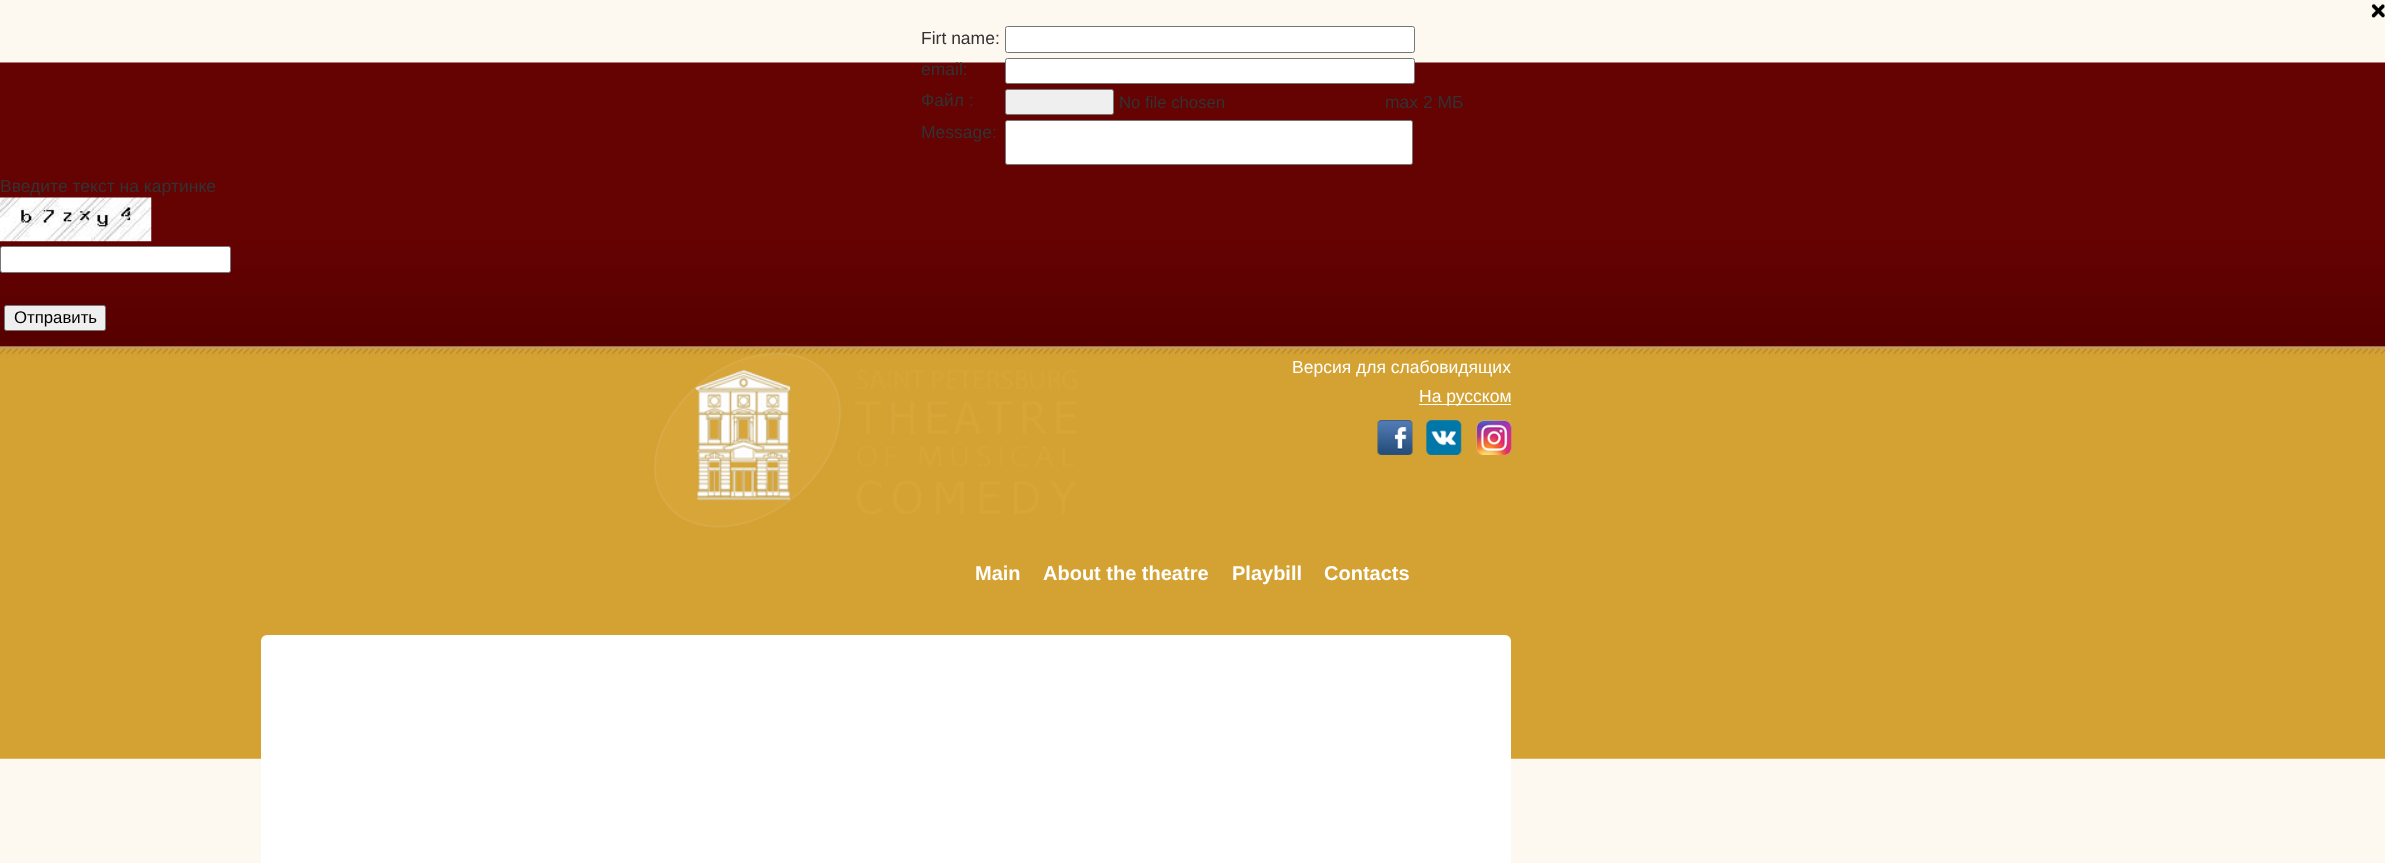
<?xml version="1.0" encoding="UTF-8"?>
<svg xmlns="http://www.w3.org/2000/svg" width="2385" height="863">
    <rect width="100%" height="100%" fill="#FEF9F0"/>
    <image x="0" y="62" width="2385" height="697" href="img_01.png"/>
    <image x="2371" y="3" width="14" height="15" href="img_02.png"/>
    <text x="921" y="44" font-family="Liberation Sans" font-size="17.5" fill="#333333">Firt name:</text>
    <rect x="1005.5" y="26.5" width="409" height="26" rx="2" fill="#FFFFFF" stroke="#767676"/>
    <text x="921" y="75" font-family="Liberation Sans" font-size="17.5" fill="#333333">email:</text>
    <rect x="1005.5" y="58.5" width="409" height="25" rx="2" fill="#FFFFFF" stroke="#767676"/>
    <text x="921" y="106" font-family="Liberation Sans" font-size="17.5" fill="#333333">Файл :</text>
    <rect x="1005.5" y="89.5" width="108" height="25" rx="2" fill="#EFEFEF" stroke="#767676"/>
    <text x="1119" y="108" font-family="Liberation Sans" font-size="16.75" fill="#333333">No file chosen</text>
    <text x="1385" y="108" font-family="Liberation Sans" font-size="17.5" fill="#333333">max 2 МБ</text>
    <text x="921" y="138" font-family="Liberation Sans" font-size="17.5" fill="#333333">Message:</text>
    <rect x="1005.5" y="120.5" width="407" height="44" rx="2" fill="#FFFFFF" stroke="#767676"/>
    <text x="0" y="192" font-family="Liberation Sans" font-size="17.5" fill="#333333">Введите текст на картинке</text>
    <image x="0" y="197" width="152" height="45" href="img_03.png"/>
    <rect x="0.5" y="246.5" width="230" height="26" rx="2" fill="#FFFFFF" stroke="#767676"/>
    <rect x="4.5" y="305.5" width="101" height="25" rx="2" fill="#EFEFEF" stroke="#767676"/>
    <text x="14" y="323" font-family="Liberation Sans" font-size="16.75" fill="#000000">Отправить</text>
    <image x="654" y="352" width="423" height="176" href="img_04.png"/>
    <text x="1292" y="373" font-family="Liberation Sans" font-size="17.5" fill="#FFFFFF">Версия для слабовидящих</text>
    <rect x="1419" y="404" width="92" height="1" fill="#FFFFFF"/>
    <text x="1419" y="402" font-family="Liberation Sans" font-size="17.5" fill="#FFFFFF">На русском</text>
    <image x="1377" y="420" width="36" height="35" href="img_05.png"/>
    <image x="1426" y="420" width="36" height="35" href="img_06.png"/>
    <image x="1476" y="420" width="36" height="35" href="img_07.png"/>
    <text x="975" y="580" font-family="Liberation Sans" font-size="20" font-weight="700" fill="#FFFFFF">Main</text>
    <text x="1043" y="580" font-family="Liberation Sans" font-size="20" font-weight="700" fill="#FFFFFF">About the theatre</text>
    <text x="1232" y="580" font-family="Liberation Sans" font-size="20" font-weight="700" fill="#FFFFFF">Playbill</text>
    <text x="1324" y="580" font-family="Liberation Sans" font-size="20" font-weight="700" fill="#FFFFFF">Contacts</text>
    <rect x="261" y="635" width="1250" height="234" rx="6" fill="#FFFFFF"/>
</svg>
